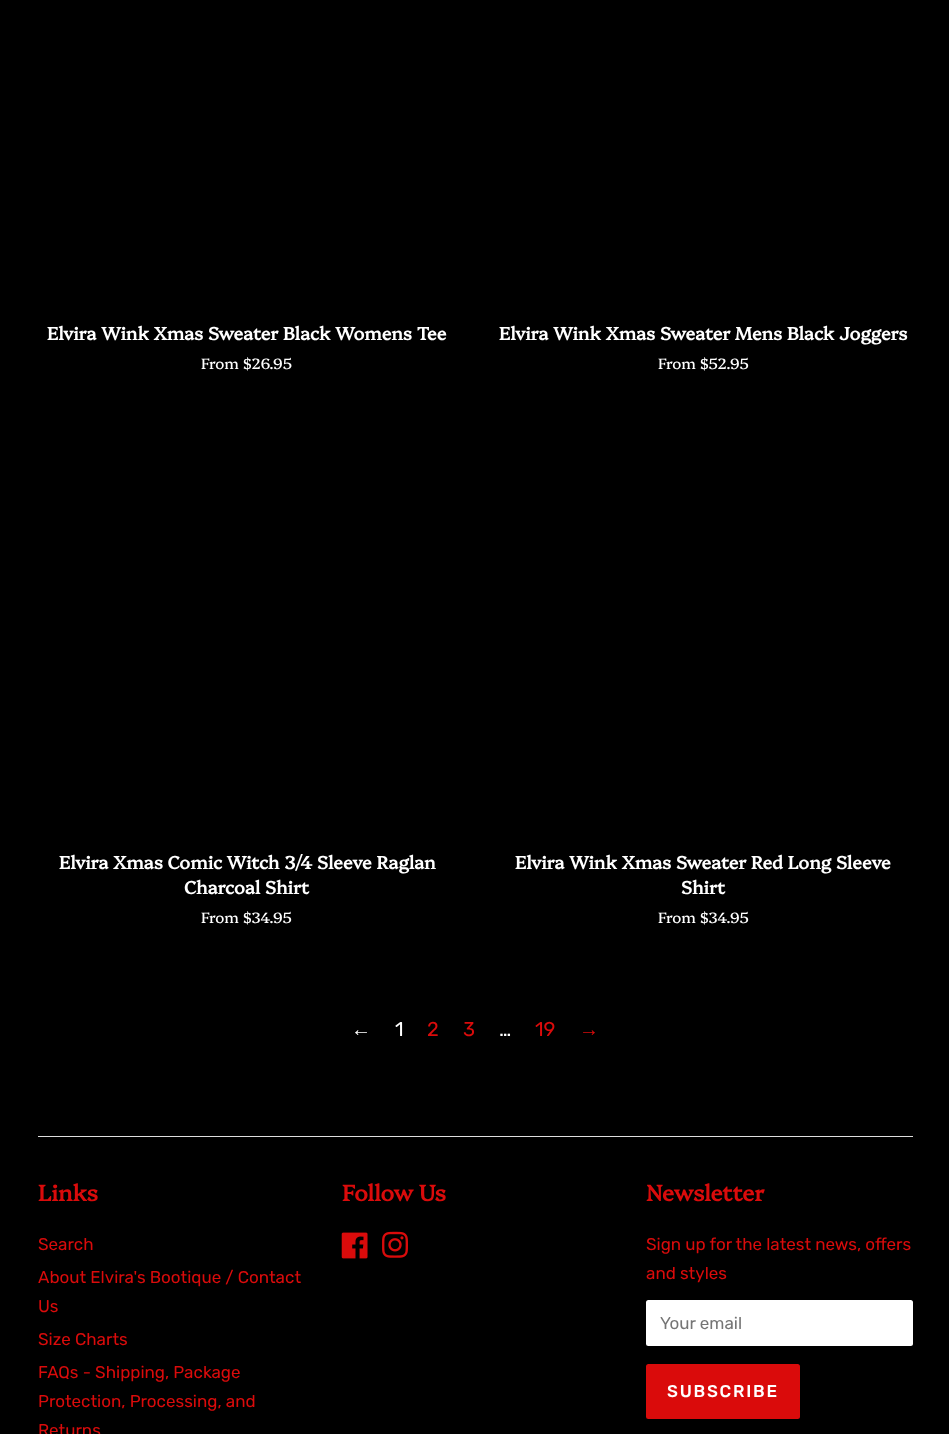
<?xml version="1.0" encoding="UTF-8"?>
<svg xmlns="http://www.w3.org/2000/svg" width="949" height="1434">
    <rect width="100%" height="100%" fill="#000000"/>
    <text x="47" y="340" font-family="Platypi" font-size="18" font-weight="700" fill="#FFFFFF">Elvira Wink Xmas Sweater Black Womens Tee</text>
    <text x="201" y="369" font-family="Platypi" font-size="15" fill="#FFFFFF">From $26.95</text>
    <text x="499" y="340" font-family="Platypi" font-size="18" font-weight="700" fill="#FFFFFF">Elvira Wink Xmas Sweater Mens Black Joggers</text>
    <text x="658" y="369" font-family="Platypi" font-size="15" fill="#FFFFFF">From $52.95</text>
    <text x="59" y="869" font-family="Platypi" font-size="18" font-weight="700" fill="#FFFFFF">Elvira Xmas Comic Witch 3/4 Sleeve Raglan</text>
    <text x="184" y="894" font-family="Platypi" font-size="18" font-weight="700" fill="#FFFFFF">Charcoal Shirt</text>
    <text x="201" y="923" font-family="Platypi" font-size="15" fill="#FFFFFF">From $34.95</text>
    <text x="515" y="869" font-family="Platypi" font-size="18" font-weight="700" fill="#FFFFFF">Elvira Wink Xmas Sweater Red Long Sleeve</text>
    <text x="681" y="894" font-family="Platypi" font-size="18" font-weight="700" fill="#FFFFFF">Shirt</text>
    <text x="658" y="923" font-family="Platypi" font-size="15" fill="#FFFFFF">From $34.95</text>
    <text x="351" y="1036" font-family="Liberation Sans" font-size="20" fill="#FFFFFF">←</text>
    <text x="395" y="1036" font-family="Rubik" font-size="20" fill="#FFFFFF">1</text>
    <text x="427" y="1036" font-family="Rubik" font-size="20" fill="#DA0B0B">2</text>
    <text x="463" y="1036" font-family="Rubik" font-size="20" fill="#DA0B0B">3</text>
    <text x="499" y="1036" font-family="Rubik" font-size="20" fill="#FFFFFF">…</text>
    <text x="535" y="1036" font-family="Rubik" font-size="20" fill="#DA0B0B">19</text>
    <text x="579" y="1036" font-family="Liberation Sans" font-size="20" fill="#DA0B0B">→</text>
    <rect x="38" y="1136" width="875" height="1" fill="#DDDDDD"/>
    <text x="38" y="1201" font-family="Platypi" font-size="22.5" font-weight="700" fill="#DA0B0B">Links</text>
    <text font-family="Rubik" font-size="17" fill="#DA0B0B">
        <tspan x="38" y="1250">Search</tspan>
        <tspan x="38" y="1283">About Elvira's Bootique / Contact</tspan>
        <tspan x="38" y="1312">Us</tspan>
        <tspan x="38" y="1345">Size Charts</tspan>
        <tspan x="38" y="1378">FAQs - Shipping, Package</tspan>
        <tspan x="38" y="1407">Protection, Processing, and</tspan>
        <tspan x="38" y="1436">Returns</tspan>
    </text>
    <text x="342" y="1201" font-family="Platypi" font-size="22.5" font-weight="700" fill="#DA0B0B">Follow Us</text>
    <image x="341" y="1232" width="27" height="27" href="img_01.png"/>
    <image x="382" y="1231" width="26" height="27" href="img_02.png"/>
    <text x="646" y="1201" font-family="Platypi" font-size="22.5" font-weight="700" fill="#DA0B0B">Newsletter</text>
    <text font-family="Rubik" font-size="17" fill="#DA0B0B">
        <tspan x="646" y="1250">Sign up for the latest news, offers</tspan>
        <tspan x="646" y="1279">and styles</tspan>
    </text>
    <rect x="646" y="1300" width="267" height="46" rx="2.5" fill="#FFFFFF"/>
    <rect x="646.5" y="1300.5" width="266" height="45" rx="2" fill="none" stroke="#FFFFFF" stroke-opacity="0.15"/>
    <text x="660" y="1329" font-family="Rubik" font-size="17" fill="#757575">Your email</text>
    <rect x="646" y="1364" width="154" height="55" rx="2.5" fill="#DA0B0B"/>
    <text x="667" y="1397" font-family="Rubik" font-size="17" font-weight="500" letter-spacing="1.75" fill="#FFFFFF">SUBSCRIBE</text>
</svg>
